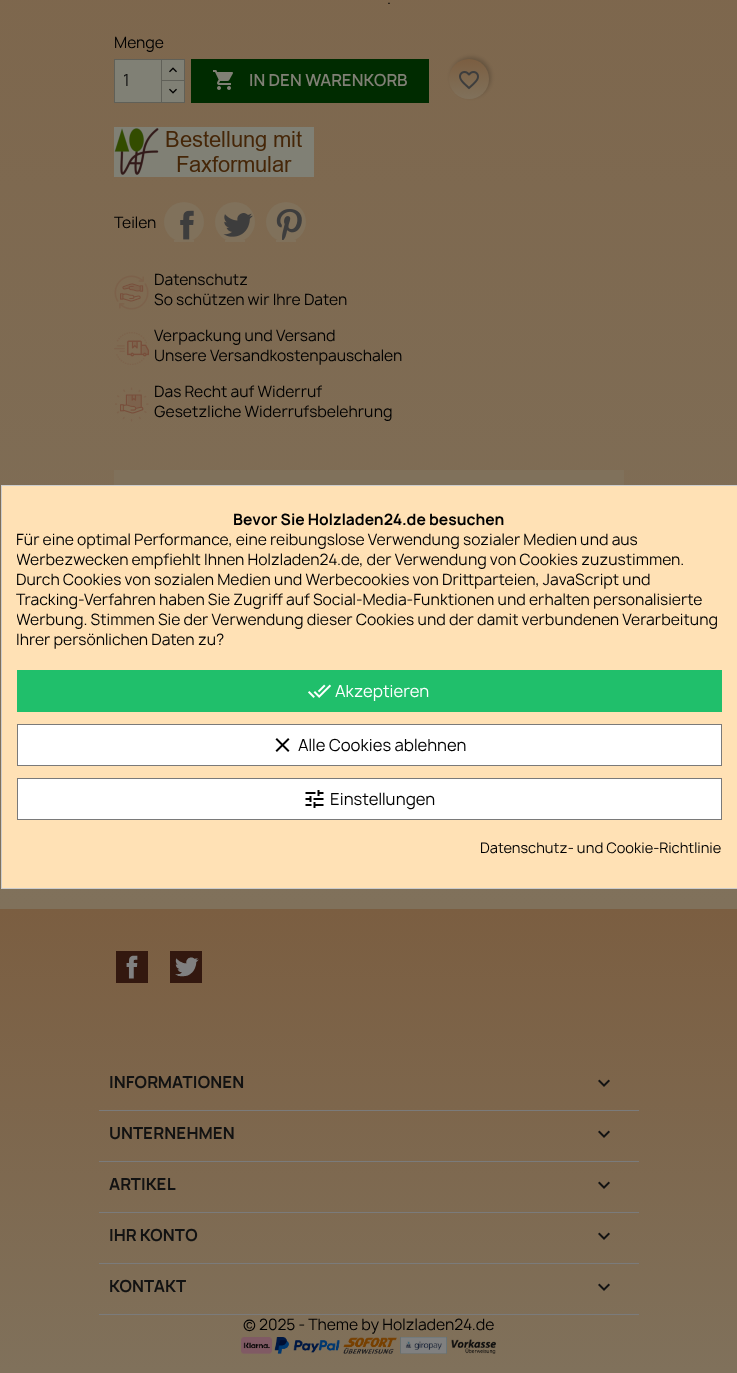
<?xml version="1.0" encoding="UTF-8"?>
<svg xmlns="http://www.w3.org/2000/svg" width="737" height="1373">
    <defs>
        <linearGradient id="g1" gradientUnits="userSpaceOnUse" x1="368" y1="-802" x2="369" y2="907"><stop offset="0" stop-color="#7B5E41"/><stop offset="1" stop-color="#80715B"/></linearGradient>
        <filter id="blur1" x="-50%" y="-200%" width="200%" height="500%"><feGaussianBlur stdDeviation="2"/></filter>
        <linearGradient id="g2" gradientUnits="userSpaceOnUse" x1="469" y1="59" x2="469" y2="99"><stop offset="0" stop-color="#7B5E41"/><stop offset="1" stop-color="#80715B"/></linearGradient>
        <linearGradient id="g3" gradientUnits="userSpaceOnUse" x1="369" y1="909" x2="369" y2="1371"><stop offset="0" stop-color="#7B5E41"/><stop offset="1" stop-color="#80715B"/></linearGradient>
        <clipPath id="clip1"><rect x="17" y="530" width="705" height="120"/></clipPath>
    </defs>
    <rect width="100%" height="100%" fill="#FFFFFF"/>
    <rect x="0" y="0" width="737" height="907" fill="url(#g1)"/>
    <rect x="0" y="907" width="737" height="2" fill="#80715B"/>
    <text x="387" y="4" font-family="Manrope" font-size="15" fill="#000000">.</text>
    <text x="114" y="48" font-family="Manrope" font-size="15" fill="#000000">Menge</text>
    <rect x="162" y="60" width="22" height="20" fill="#808075"/>
    <rect x="161.5" y="59.5" width="23" height="22" fill="none" stroke="#606058"/>
    <rect x="161.5" y="80.5" width="23" height="22" fill="#808075" stroke="#606058"/>
    <rect x="114.5" y="59.5" width="47" height="43" fill="#808075" stroke="#606058"/>
    <text x="123" y="86" font-family="Manrope" font-size="16" fill="#121212">1</text>
    <image x="169" y="67" width="8" height="6" href="img_01.png"/>
    <image x="169" y="88" width="8" height="6" href="img_02.png"/>
    <rect x="191" y="59" width="238" height="44" fill="#002B00"/>
    <image x="213" y="70" width="20" height="20" href="img_03.png"/>
    <text x="249" y="86" font-family="Manrope" font-size="16" font-weight="600" fill="#808075">IN DEN WARENKORB</text>
    <rect x="451" y="57" width="40" height="40" rx="20" fill="#000000" fill-opacity="0.2" filter="url(#blur1)"/>
    <circle cx="469" cy="79" r="20" fill="url(#g2)"/>
    <image x="459" y="71" width="20" height="19" href="img_04.png"/>
    <rect x="114" y="127" width="200" height="50" fill="#808075"/>
    <image x="114" y="128" width="188" height="47" href="img_05.png"/>
    <text x="114" y="228" font-family="Manrope" font-size="15" fill="#000000">Teilen</text>
    <circle cx="184" cy="222" r="20" fill="#80715B"/>
    <image x="180" y="210" width="14" height="30" href="img_06.png"/>
    <rect x="174" y="240" width="20" height="2" fill="#80715B"/>
    <circle cx="235" cy="222" r="20" fill="#80715B"/>
    <image x="223" y="213" width="30" height="24" href="img_07.png"/>
    <rect x="225" y="240" width="20" height="2" fill="#80715B"/>
    <circle cx="286" cy="222" r="20" fill="#80715B"/>
    <image x="276" y="209" width="26" height="31" href="img_08.png"/>
    <rect x="276" y="240" width="20" height="2" fill="#80715B"/>
    <image x="114" y="275" width="35" height="35" href="img_09.png"/>
    <text font-family="Manrope" font-size="15" fill="#000000">
        <tspan x="154" y="285">Datenschutz</tspan>
        <tspan x="154" y="305">So schützen wir Ihre Daten</tspan>
    </text>
    <image x="114" y="332" width="35" height="33" href="img_10.png"/>
    <text font-family="Manrope" font-size="15" fill="#000000">
        <tspan x="154" y="341">Verpackung und Versand</tspan>
        <tspan x="154" y="361">Unsere Versandkostenpauschalen</tspan>
    </text>
    <image x="115" y="387" width="34" height="35" href="img_11.png"/>
    <text font-family="Manrope" font-size="15" fill="#000000">
        <tspan x="154" y="397">Das Recht auf Widerruf</tspan>
        <tspan x="154" y="417">Gesetzliche Widerrufsbelehrung</tspan>
    </text>
    <rect x="114" y="470" width="510" height="15" fill="#80715B"/>
    <rect x="0" y="909" width="737" height="462" fill="url(#g3)"/>
    <rect x="0" y="1371" width="737" height="2" fill="#80715B"/>
    <rect x="116" y="951" width="32" height="32" fill="#33180F"/>
    <image x="126" y="955" width="12" height="24" href="img_12.png"/>
    <rect x="170" y="951" width="32" height="32" fill="#33180F"/>
    <image x="175" y="957" width="24" height="20" href="img_13.png"/>
    <rect x="99" y="1110" width="540" height="1" fill="#7B7B7B"/>
    <text x="109" y="1088" font-family="Manrope" font-size="16" font-weight="700" fill="#121212">INFORMATIONEN</text>
    <image x="598" y="1079" width="12" height="8" href="img_14.png"/>
    <rect x="99" y="1161" width="540" height="1" fill="#7B7B7B"/>
    <text x="109" y="1139" font-family="Manrope" font-size="16" font-weight="700" fill="#121212">UNTERNEHMEN</text>
    <image x="598" y="1130" width="12" height="8" href="img_15.png"/>
    <rect x="99" y="1212" width="540" height="1" fill="#7B7B7B"/>
    <text x="109" y="1190" font-family="Manrope" font-size="16" font-weight="700" fill="#121212">ARTIKEL</text>
    <image x="598" y="1181" width="12" height="8" href="img_16.png"/>
    <rect x="99" y="1263" width="540" height="1" fill="#7B7B7B"/>
    <text x="109" y="1241" font-family="Manrope" font-size="16" font-weight="700" fill="#121212">IHR KONTO</text>
    <image x="598" y="1232" width="12" height="8" href="img_17.png"/>
    <rect x="99" y="1314" width="540" height="1" fill="#7B7B7B"/>
    <text x="109" y="1292" font-family="Manrope" font-size="16" font-weight="700" fill="#121212">KONTAKT</text>
    <image x="598" y="1283" width="12" height="8" href="img_18.png"/>
    <text x="243" y="1330" font-family="Manrope" font-size="15" fill="#000000">© 2025 - Theme by Holzladen24.de</text>
    <image x="241" y="1337" width="255" height="17" href="img_19.png"/>
    <rect x="1.5" y="485.5" width="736" height="403" fill="#FFE1B5" stroke="#CCCCCC"/>
    <text x="233" y="525" font-family="Manrope" font-size="15" font-weight="700" fill="#000000">Bevor Sie Holzladen24.de besuchen</text>
    <text x="16" y="545" font-family="Manrope" font-size="15" fill="#000000">Für eine optimal Performance, eine reibungslose Verwendung sozialer Medien und aus</text>
    <g clip-path="url(#clip1)">
        <text x="16" y="565" font-family="Manrope" font-size="15" fill="#000000">Werbezwecken empfiehlt Ihnen Holzladen24.de, der Verwendung von Cookies zuzustimmen.</text>
    </g>
    <text font-family="Manrope" font-size="15" fill="#000000">
        <tspan x="16" y="585">Durch Cookies von sozialen Medien und Werbecookies von Drittparteien, JavaScript und</tspan>
        <tspan x="16" y="605">Tracking-Verfahren haben Sie Zugriff auf Social-Media-Funktionen und erhalten personalisierte</tspan>
    </text>
    <g clip-path="url(#clip1)">
        <text x="16" y="625" font-family="Manrope" font-size="15" fill="#000000">Werbung. Stimmen Sie der Verwendung dieser Cookies und der damit verbundenen Verarbeitung</text>
    </g>
    <text x="16" y="645" font-family="Manrope" font-size="15" fill="#000000">Ihrer persönlichen Daten zu?</text>
    <rect x="17" y="670" width="705" height="42" fill="#20BF6B"/>
    <image x="308" y="684" width="23" height="14" href="img_20.png"/>
    <text x="335" y="697" font-family="Manrope" font-size="16" fill="#FFFFFF">Akzeptieren</text>
    <rect x="17.5" y="724.5" width="704" height="41" fill="#FFFFFF" stroke="#7A7A7A"/>
    <image x="275" y="738" width="15" height="14" href="img_21.png"/>
    <text x="298" y="751" font-family="Manrope" font-size="16" fill="#000000">Alle Cookies ablehnen</text>
    <rect x="17.5" y="778.5" width="704" height="41" fill="#FFFFFF" stroke="#7A7A7A"/>
    <image x="305" y="790" width="19" height="18" href="img_22.png"/>
    <text x="330" y="805" font-family="Manrope" font-size="16" fill="#000000">Einstellungen</text>
    <text x="480" y="853" font-family="Manrope" font-size="14" fill="#000000">Datenschutz- und Cookie-Richtlinie</text>
</svg>
